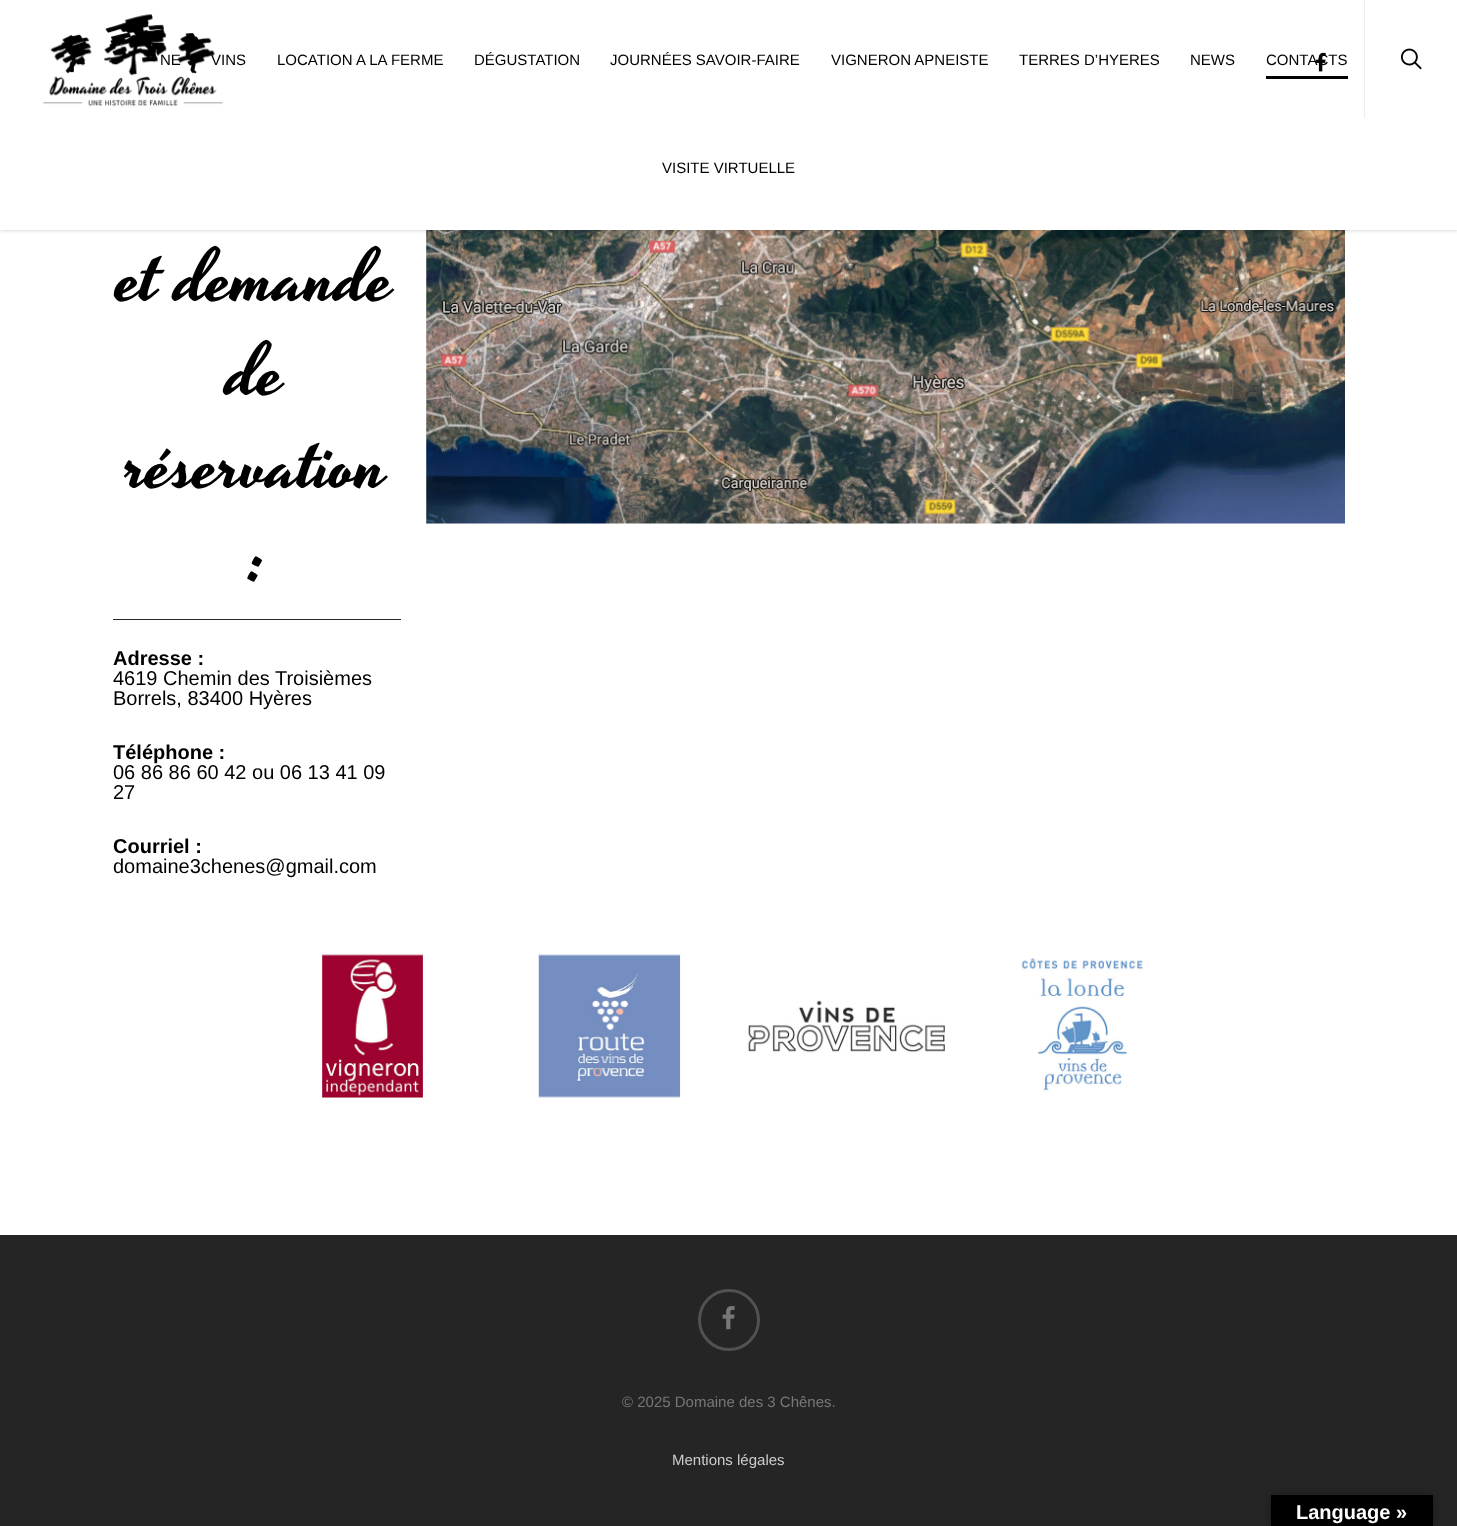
<?xml version="1.0" encoding="UTF-8"?>
<svg xmlns="http://www.w3.org/2000/svg" width="1457" height="1526">
    <defs>
        <filter id="blur1" x="-50%" y="-200%" width="200%" height="500%"><feGaussianBlur stdDeviation="2"/></filter>
        <filter id="blur2" x="-50%" y="-200%" width="200%" height="500%"><feGaussianBlur stdDeviation="5.5"/></filter>
    </defs>
    <rect width="100%" height="100%" fill="#252525"/>
    <rect x="0" y="230" width="1457" height="1005" fill="#FFFFFF"/>
    <image x="426" y="230" width="919" height="294" href="img_04.png"/>
    <rect x="0" y="0" width="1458" height="230" fill="#000000" fill-opacity="0.22" filter="url(#blur1)"/>
    <rect x="0" y="0" width="1457" height="230" fill="#FFFFFF"/>
    <text x="160" y="65" font-family="Liberation Sans" font-size="15" fill="#000000">NE</text>
    <text x="211" y="65" font-family="Liberation Sans" font-size="15" fill="#000000">VINS</text>
    <image x="42" y="14" width="181" height="93" href="img_01.png"/>
    <text x="277" y="65" font-family="Liberation Sans" font-size="15" fill="#000000">LOCATION A LA FERME</text>
    <text x="474" y="65" font-family="Liberation Sans" font-size="15" fill="#000000">DÉGUSTATION</text>
    <text x="610" y="65" font-family="Liberation Sans" font-size="15" fill="#000000">JOURNÉES SAVOIR-FAIRE</text>
    <text x="831" y="65" font-family="Liberation Sans" font-size="15" fill="#000000">VIGNERON APNEISTE</text>
    <text x="1019" y="65" font-family="Liberation Sans" font-size="15" fill="#000000">TERRES D’HYERES</text>
    <text x="1190" y="65" font-family="Liberation Sans" font-size="15" fill="#000000">NEWS</text>
    <text x="1266" y="65" font-family="Liberation Sans" font-size="15" fill="#000000">CONTACTS</text>
    <rect x="1266" y="76" width="82" height="3" fill="#000000"/>
    <text x="662" y="173" font-family="Liberation Sans" font-size="15" fill="#000000">VISITE VIRTUELLE</text>
    <image x="1316" y="52" width="10" height="20" href="img_02.png"/>
    <rect x="1364" y="0" width="1" height="118" fill="#EDEDED"/>
    <image x="1401" y="48" width="21" height="22" href="img_03.png"/>
    <text x="119" y="299" font-family="Yesteryear" font-size="75" fill="#000000">et demande</text>
    <text x="228" y="393" font-family="Yesteryear" font-size="75" fill="#000000">de</text>
    <text x="126" y="486" font-family="Yesteryear" font-size="75" fill="#000000">réservation</text>
    <text x="245" y="580" font-family="Yesteryear" font-size="75" fill="#000000">:</text>
    <rect x="113" y="619" width="288" height="1" fill="#2A2A2A"/>
    <text x="113" y="665" font-family="Liberation Sans" font-size="20" font-weight="700" fill="#000000">Adresse :</text>
    <text font-family="Liberation Sans" font-size="20" fill="#000000">
        <tspan x="113" y="685">4619 Chemin des Troisièmes</tspan>
        <tspan x="113" y="705">Borrels, 83400 Hyères</tspan>
    </text>
    <text x="113" y="759" font-family="Liberation Sans" font-size="20" font-weight="700" fill="#000000">Téléphone :</text>
    <text font-family="Liberation Sans" font-size="20" fill="#000000">
        <tspan x="113" y="779">06 86 86 60 42 ou 06 13 41 09</tspan>
        <tspan x="113" y="799">27</tspan>
    </text>
    <text x="113" y="853" font-family="Liberation Sans" font-size="20" font-weight="700" fill="#000000">Courriel :</text>
    <text x="113" y="873" font-family="Liberation Sans" font-size="20" fill="#000000">domaine3chenes@gmail.com</text>
    <image x="321" y="953" width="103" height="145" href="img_05.png"/>
    <image x="538" y="954" width="143" height="144" href="img_06.png"/>
    <image x="748" y="1000" width="197" height="53" href="img_07.png"/>
    <image x="1021" y="958" width="122" height="133" href="img_08.png"/>
    <image x="722" y="1306" width="13" height="24" href="img_09.png"/>
    <circle cx="729" cy="1320" r="29.5" fill="none" stroke="#515151" stroke-width="3"/>
    <text x="622" y="1407" font-family="Liberation Sans" font-size="15" fill="#777777">© 2025 Domaine des 3 Chênes.</text>
    <text x="672" y="1465" font-family="Liberation Sans" font-size="15" fill="#CCCCCC">Mentions légales</text>
    <rect x="1271" y="1495" width="162" height="31" fill="#000000" fill-opacity="0.3" filter="url(#blur2)"/>
    <rect x="1271" y="1495" width="162" height="31" fill="#000000"/>
    <text x="1296" y="1519" font-family="Liberation Sans" font-size="20" font-weight="700" fill="#FFFFFF">Language »</text>
</svg>
